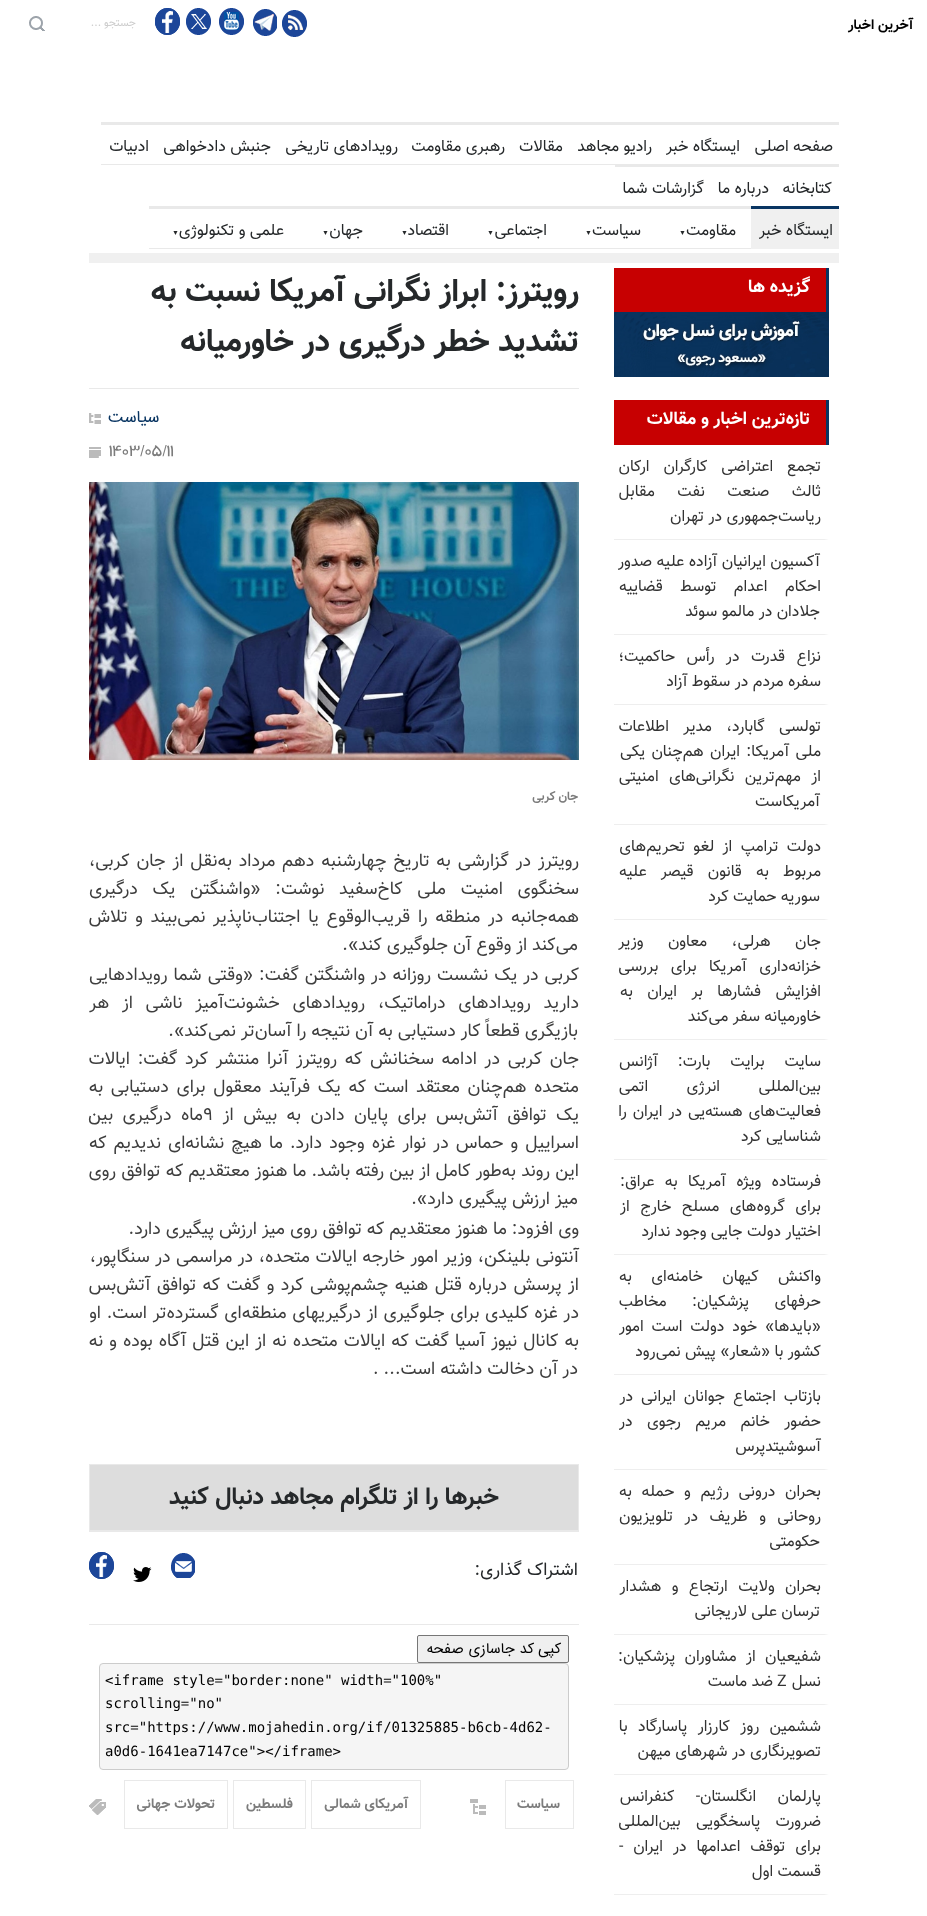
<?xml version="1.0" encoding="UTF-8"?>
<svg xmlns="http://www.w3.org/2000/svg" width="927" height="1916">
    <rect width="100%" height="100%" fill="#FFFFFF"/>
    <text x="913" y="29" font-family="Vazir" font-size="14" font-weight="700" direction="rtl" fill="#000000">آخرین اخبار</text>
    <image x="282" y="10" width="25" height="27" href="img_01.png"/>
    <image x="253" y="9" width="24" height="27" href="img_02.png"/>
    <image x="219" y="8" width="25" height="27" href="img_03.png"/>
    <image x="186" y="8" width="25" height="27" href="img_04.png"/>
    <image x="155" y="8" width="25" height="27" href="img_05.png"/>
    <text x="136" y="26" font-family="Vazir" font-size="11" direction="rtl" fill="#CCCCCC">جستجو ...</text>
    <image x="29" y="16" width="16" height="15" href="img_06.png"/>
    <rect x="101" y="122" width="738" height="3" fill="#E9E9E9"/>
    <text x="833" y="151" font-family="Vazir" font-size="16" direction="rtl" fill="#25282A">صفحه اصلی</text>
    <text x="740" y="151" font-family="Vazir" font-size="16" direction="rtl" fill="#25282A">ایستگاه خبر</text>
    <rect x="101" y="164" width="514" height="1" fill="#E9E9E9"/>
    <text x="652" y="151" font-family="Vazir" font-size="16" direction="rtl" fill="#25282A">رادیو مجاهد</text>
    <text x="563" y="151" font-family="Vazir" font-size="16" direction="rtl" fill="#25282A">مقالات</text>
    <text x="505" y="151" font-family="Vazir" font-size="16" direction="rtl" fill="#25282A">رهبری مقاومت</text>
    <text x="398" y="151" font-family="Vazir" font-size="16" direction="rtl" fill="#25282A">رویدادهای تاریخی</text>
    <text x="271" y="151" font-family="Vazir" font-size="16" direction="rtl" fill="#25282A">جنبش دادخواهی</text>
    <text x="149" y="151" font-family="Vazir" font-size="16" direction="rtl" fill="#25282A">ادبیات</text>
    <rect x="615" y="164" width="224" height="3" fill="#E9E9E9"/>
    <text x="832" y="193" font-family="Vazir" font-size="16" direction="rtl" fill="#25282A">کتابخانه</text>
    <text x="769" y="193" font-family="Vazir" font-size="16" direction="rtl" fill="#25282A">درباره ما</text>
    <text x="704" y="193" font-family="Vazir" font-size="16" direction="rtl" fill="#25282A">گزارشات شما</text>
    <rect x="751" y="209" width="88" height="40" fill="#F0F0F0"/>
    <rect x="751" y="206" width="88" height="3" fill="#093562"/>
    <text x="833" y="235" font-family="Vazir" font-size="16" direction="rtl" fill="#25282A">ایستگاه خبر</text>
    <rect x="149" y="206" width="602" height="3" fill="#E9E9E9"/>
    <rect x="149" y="248" width="602" height="1" fill="#E9E9E9"/>
    <text x="736" y="235" font-family="Vazir" font-size="16" direction="rtl" fill="#25282A">مقاومت</text>
    <text x="679" y="235" font-family="Liberation Serif" font-size="7" fill="#25282A">▼</text>
    <text x="641" y="235" font-family="Vazir" font-size="16" direction="rtl" fill="#25282A">سیاست</text>
    <text x="585" y="235" font-family="Liberation Serif" font-size="7" fill="#25282A">▼</text>
    <text x="547" y="235" font-family="Vazir" font-size="16" direction="rtl" fill="#25282A">اجتماعی</text>
    <text x="487" y="235" font-family="Liberation Serif" font-size="7" fill="#25282A">▼</text>
    <text x="449" y="235" font-family="Vazir" font-size="16" direction="rtl" fill="#25282A">اقتصاد</text>
    <text x="401" y="235" font-family="Liberation Serif" font-size="7" fill="#25282A">▼</text>
    <text x="363" y="235" font-family="Vazir" font-size="16" direction="rtl" fill="#25282A">جهان</text>
    <text x="322" y="235" font-family="Liberation Serif" font-size="7" fill="#25282A">▼</text>
    <text x="284" y="235" font-family="Vazir" font-size="16" direction="rtl" fill="#25282A">علمی و تکنولوژی</text>
    <text x="172" y="235" font-family="Liberation Serif" font-size="7" fill="#25282A">▼</text>
    <rect x="89" y="253" width="750" height="10" fill="#F0F0F0"/>
    <rect x="614" y="268" width="212" height="44" fill="#C70001"/>
    <rect x="826" y="268" width="3" height="44" fill="#093562"/>
    <text x="810" y="292" font-family="Vazir" font-size="18" font-weight="700" direction="rtl" fill="#FFFFFF">گزیده ها</text>
    <image x="614" y="312" width="215" height="65" href="img_07.png"/>
    <rect x="614" y="400" width="212" height="45" fill="#C70001"/>
    <rect x="826" y="400" width="3" height="45" fill="#093562"/>
    <text x="810" y="424" font-family="Vazir" font-size="18" font-weight="700" direction="rtl" fill="#FFFFFF">تازه‌ترین اخبار و مقالات</text>
    <path d="M 829 540 H 614 V 539 H 824 Z" fill="#EEEEEE"/>
    <text font-family="Vazir" font-size="16" direction="rtl" fill="#333333">
        <tspan x="821" y="471" word-spacing="9.5">تجمع اعتراضی کارگران ارکان</tspan>
        <tspan x="821" y="496" word-spacing="18">ثالث صنعت نفت مقابل</tspan>
        <tspan x="821" y="521">ریاست‌جمهوری در تهران</tspan>
    </text>
    <path d="M 829 635 H 614 V 634 H 824 Z" fill="#EEEEEE"/>
    <text x="820" y="566" font-family="Vazir" font-size="16" direction="rtl" fill="#333333">آکسیون ایرانیان آزاده علیه صدور</text>
    <text x="821" y="591" word-spacing="13" font-family="Vazir" font-size="16" direction="rtl" fill="#333333">احکام اعدام توسط قضاییه</text>
    <text x="820" y="616" font-family="Vazir" font-size="16" direction="rtl" fill="#333333">جلادان در مالمو سوئد</text>
    <path d="M 829 705 H 614 V 704 H 824 Z" fill="#EEEEEE"/>
    <text font-family="Vazir" font-size="16" direction="rtl" fill="#333333">
        <tspan x="821" y="661" word-spacing="7">نزاع قدرت در رأس حاکمیت؛</tspan>
        <tspan x="821" y="686">سفره مردم در سقوط آزاد</tspan>
    </text>
    <path d="M 829 825 H 614 V 824 H 824 Z" fill="#EEEEEE"/>
    <text font-family="Vazir" font-size="16" direction="rtl" fill="#333333">
        <tspan x="821" y="731" word-spacing="10">تولسی گابارد، مدیر اطلاعات</tspan>
        <tspan x="821" y="756" word-spacing="2">ملی آمریکا: ایران هم‌چنان یکی</tspan>
        <tspan x="821" y="781" word-spacing="6">از مهم‌ترین نگرانی‌های امنیتی</tspan>
    </text>
    <text x="820" y="806" font-family="Vazir" font-size="16" direction="rtl" fill="#333333">آمریکاست</text>
    <path d="M 829 920 H 614 V 919 H 824 Z" fill="#EEEEEE"/>
    <text font-family="Vazir" font-size="16" direction="rtl" fill="#333333">
        <tspan x="821" y="851" word-spacing="4">دولت ترامپ از لغو تحریم‌های</tspan>
        <tspan x="821" y="876" word-spacing="9.75">مربوط به قانون قیصر علیه</tspan>
    </text>
    <text x="820" y="901" font-family="Vazir" font-size="16" direction="rtl" fill="#333333">سوریه حمایت کرد</text>
    <path d="M 829 1040 H 614 V 1039 H 824 Z" fill="#EEEEEE"/>
    <text font-family="Vazir" font-size="16" direction="rtl" fill="#333333">
        <tspan x="821" y="946" word-spacing="20">جان هرلی، معاون وزیر</tspan>
        <tspan x="821" y="971" word-spacing="8">خزانه‌داری آمریکا برای بررسی</tspan>
        <tspan x="821" y="996" word-spacing="10">افزایش فشارها بر ایران به</tspan>
        <tspan x="821" y="1021">خاورمیانه سفر می‌کند</tspan>
    </text>
    <path d="M 829 1160 H 614 V 1159 H 824 Z" fill="#EEEEEE"/>
    <text font-family="Vazir" font-size="16" direction="rtl" fill="#333333">
        <tspan x="821" y="1066" word-spacing="15.5">سایت برایت بارت: آژانس</tspan>
        <tspan x="821" y="1091" word-spacing="34">بین‌المللی انرژی اتمی</tspan>
        <tspan x="821" y="1116" word-spacing="1.5">فعالیت‌های هسته‌یی در ایران را</tspan>
        <tspan x="821" y="1141">شناسایی کرد</tspan>
    </text>
    <path d="M 829 1255 H 614 V 1254 H 824 Z" fill="#EEEEEE"/>
    <text font-family="Vazir" font-size="16" direction="rtl" fill="#333333">
        <tspan x="821" y="1186" word-spacing="6">فرستاده ویژه آمریکا به عراق:</tspan>
        <tspan x="821" y="1211" word-spacing="6">برای گروه‌های مسلح خارج از</tspan>
        <tspan x="821" y="1236">اختیار دولت جایی وجود ندارد</tspan>
    </text>
    <path d="M 829 1375 H 614 V 1374 H 824 Z" fill="#EEEEEE"/>
    <text font-family="Vazir" font-size="16" direction="rtl" fill="#333333">
        <tspan x="821" y="1281" word-spacing="15">واکنش کیهان خامنه‌ای به</tspan>
        <tspan x="821" y="1306" word-spacing="21">حرفهای پزشکیان: مخاطب</tspan>
        <tspan x="821" y="1331" word-spacing="3.5">«بایدها» خود دولت است امور</tspan>
        <tspan x="821" y="1356">کشور با «شعار» پیش نمی‌رود</tspan>
    </text>
    <path d="M 829 1470 H 614 V 1469 H 824 Z" fill="#EEEEEE"/>
    <text font-family="Vazir" font-size="16" direction="rtl" fill="#333333">
        <tspan x="821" y="1401" word-spacing="3.5">بازتاب اجتماع جوانان ایرانی در</tspan>
        <tspan x="821" y="1426" word-spacing="10">حضور خانم مریم رجوی در</tspan>
        <tspan x="821" y="1451">آسوشیتدپرس</tspan>
    </text>
    <path d="M 829 1565 H 614 V 1564 H 824 Z" fill="#EEEEEE"/>
    <text font-family="Vazir" font-size="16" direction="rtl" fill="#333333">
        <tspan x="821" y="1496" word-spacing="5.25">بحران درونی رژیم و حمله به</tspan>
        <tspan x="821" y="1521" word-spacing="7">روحانی و ظریف در تلویزیون</tspan>
    </text>
    <text x="820" y="1546" font-family="Vazir" font-size="16" direction="rtl" fill="#333333">حکومتی</text>
    <path d="M 829 1635 H 614 V 1634 H 824 Z" fill="#EEEEEE"/>
    <text x="821" y="1591" word-spacing="6" font-family="Vazir" font-size="16" direction="rtl" fill="#333333">بحران ولایت ارتجاع و هشدار</text>
    <text x="820" y="1616" font-family="Vazir" font-size="16" direction="rtl" fill="#333333">ترسان علی لاریجانی</text>
    <path d="M 829 1705 H 614 V 1704 H 824 Z" fill="#EEEEEE"/>
    <text font-family="Vazir" font-size="16" direction="rtl" fill="#333333">
        <tspan x="821" y="1661" word-spacing="5">شفیعیان از مشاوران پزشکیان:</tspan>
        <tspan x="821" y="1686">نسل</tspan>
    </text>
    <text x="777" y="1686" font-family="Vazir" font-size="16" fill="#333333">Z</text>
    <text x="773" y="1686" font-family="Vazir" font-size="16" direction="rtl" fill="#333333">ضد ماست</text>
    <path d="M 829 1775 H 614 V 1774 H 824 Z" fill="#EEEEEE"/>
    <text font-family="Vazir" font-size="16" direction="rtl" fill="#333333">
        <tspan x="821" y="1731" word-spacing="6">ششمین روز کارزار پاسارگاد با</tspan>
        <tspan x="821" y="1756">تصویرنگاری در شهرهای میهن</tspan>
    </text>
    <path d="M 829 1895 H 614 V 1894 H 824 Z" fill="#EEEEEE"/>
    <text font-family="Vazir" font-size="16" direction="rtl" fill="#333333">
        <tspan x="821" y="1801" word-spacing="17">پارلمان انگلستان- کنفرانس</tspan>
        <tspan x="821" y="1826" word-spacing="11">ضرورت پاسخگویی بین‌المللی</tspan>
        <tspan x="821" y="1851" word-spacing="5.5">برای توقف اعدامها در ایران -</tspan>
        <tspan x="821" y="1876">قسمت اول</tspan>
    </text>
    <text font-family="Vazir" font-size="32" font-weight="700" direction="rtl" fill="#25282A">
        <tspan x="579" y="301">رویترز: ابراز نگرانی آمریکا نسبت به</tspan>
        <tspan x="579" y="351">تشدید خطر درگیری در خاورمیانه</tspan>
    </text>
    <rect x="89" y="388" width="490" height="1" fill="#E9E9E9"/>
    <image x="89" y="413" width="12" height="11" href="img_08.png"/>
    <text x="159" y="422" font-family="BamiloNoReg" font-size="15" direction="rtl" fill="#093562">سیاست</text>
    <image x="89" y="447" width="12" height="11" href="img_09.png"/>
    <text x="109" y="456" font-family="BamiloNoReg" font-size="15" fill="#7C7C7C">1403/05/11</text>
    <image x="89" y="482" width="490" height="278" href="img_10.png"/>
    <text x="578" y="800" font-family="Vazir" font-size="12" font-weight="700" direction="rtl" fill="#7C7C7C">جان کربی</text>
    <text font-family="Vazir" font-size="18" direction="rtl" fill="#3E3E3E">
        <tspan x="579" y="866" word-spacing="1.9">رویترز در گزارشی به تاریخ چهارشنبه دهم مرداد به‌نقل از جان کربی،</tspan>
        <tspan x="579" y="894" word-spacing="9.75">سخنگوی امنیت ملی کاخ‌سفید نوشت: «واشنگتن یک درگیری</tspan>
        <tspan x="579" y="922" word-spacing="2.75">همه‌جانبه در منطقه را قریب‌الوقوع یا اجتناب‌ناپذیر نمی‌بیند و تلاش</tspan>
    </text>
    <text x="578" y="950" font-family="Vazir" font-size="18" direction="rtl" fill="#3E3E3E">می‌کند از وقوع آن جلوگیری کند».</text>
    <text font-family="Vazir" font-size="18" direction="rtl" fill="#3E3E3E">
        <tspan x="579" y="980" word-spacing="1.1">کربی در یک نشست روزانه در واشنگتن گفت: «وقتی شما رویدادهایی</tspan>
        <tspan x="579" y="1008" word-spacing="7.75">دارید رویدادهای دراماتیک، رویدادهای خشونت‌آمیز ناشی از هر</tspan>
    </text>
    <text x="578" y="1036" font-family="Vazir" font-size="18" direction="rtl" fill="#3E3E3E">بازیگری قطعاً کار دستیابی به آن نتیجه را آسان‌تر نمی‌کند».</text>
    <text font-family="Vazir" font-size="18" direction="rtl" fill="#3E3E3E">
        <tspan x="579" y="1064" word-spacing="2.75">جان کربی در ادامه سخنانش که رویترز آنرا منتشر کرد گفت: ایالات</tspan>
        <tspan x="579" y="1092" word-spacing="2.75">متحده هم‌چنان معتقد است که یک فرآیند معقول برای دستیابی به</tspan>
        <tspan x="579" y="1120" word-spacing="4.5">یک توافق آتش‌بس برای پایان دادن به بیش از</tspan>
    </text>
    <text x="203" y="1120" font-family="Vazir" font-size="18" fill="#3E3E3E">۹</text>
    <text x="203" y="1120" word-spacing="4.5" font-family="Vazir" font-size="18" direction="rtl" fill="#3E3E3E">ماه درگیری بین</text>
    <text font-family="Vazir" font-size="18" direction="rtl" fill="#3E3E3E">
        <tspan x="579" y="1148" word-spacing="2.1">اسراییل و حماس در نوار غزه وجود دارد. ما هیچ نشانه‌ای ندیدیم که</tspan>
        <tspan x="579" y="1176" word-spacing="0.2">این روند به‌طور کامل از بین رفته باشد. ما هنوز معتقدیم که توافق روی</tspan>
    </text>
    <text x="578" y="1204" font-family="Vazir" font-size="18" direction="rtl" fill="#3E3E3E">میز ارزش پیگیری دارد».</text>
    <text font-family="Vazir" font-size="18" direction="rtl" fill="#3E3E3E">
        <tspan x="579" y="1234">وی افزود: ما هنوز معتقدیم که توافق روی میز ارزش پیگیری دارد.</tspan>
        <tspan x="579" y="1262" word-spacing="0.5">آنتونی بلینکن، وزیر امور خارجه ایالات متحده، در مراسمی در سنگاپور،</tspan>
        <tspan x="579" y="1290" word-spacing="1.4">از پرسش درباره قتل هنیه چشم‌پوشی کرد و گفت که توافق آتش‌بس</tspan>
        <tspan x="579" y="1318" word-spacing="0.75">در غزه کلیدی برای جلوگیری از درگیریهای منطقه‌ای گسترده‌تر است. او</tspan>
        <tspan x="579" y="1346" word-spacing="1.1">به کانال نیوز آسیا گفت که ایالات متحده نه از این قتل آگاه بوده و نه</tspan>
    </text>
    <text x="578" y="1374" font-family="Vazir" font-size="18" direction="rtl" fill="#3E3E3E">در آن دخالت داشته است... .</text>
    <rect x="89.5" y="1464.5" width="489" height="66" fill="#DDDDDD" stroke="#E9E9E9"/>
    <text x="499" y="1504" font-family="Vazir" font-size="24" font-weight="700" direction="rtl" fill="#25282A">خبرها را از تلگرام مجاهد دنبال کنید</text>
    <rect x="89" y="1531" width="490" height="1" fill="#E9E9E9"/>
    <rect x="89" y="1624" width="490" height="1" fill="#E9E9E9"/>
    <text x="578" y="1575" font-family="Vazir" font-size="18" direction="rtl" fill="#25282A">اشتراک گذاری:</text>
    <image x="171" y="1553" width="24" height="25" href="img_11.png"/>
    <image x="133" y="1567" width="19" height="15" href="img_12.png"/>
    <image x="89" y="1552" width="25" height="27" href="img_05.png"/>
    <rect x="417.5" y="1635.5" width="151" height="27" rx="1.5" fill="#EFEFEF" stroke="#767676"/>
    <text x="561" y="1653" font-family="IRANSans" font-size="13.25" direction="rtl" fill="#000000">کپی کد جاسازی صفحه</text>
    <rect x="99.5" y="1663.5" width="469" height="106" rx="3.5" fill="#F5F5F5" stroke="#CCCCCC"/>
    <text font-family="DejaVu Sans Mono" font-size="14" fill="#000000">
        <tspan x="105" y="1685">&lt;iframe style="border:none" width="100%"</tspan>
        <tspan x="105" y="1708">scrolling="no"</tspan>
        <tspan x="105" y="1732">src="https://www.mojahedin.org/if/01325885-b6cb-4d62-</tspan>
        <tspan x="105" y="1756">a0d6-1641ea7147ce"&gt;&lt;/iframe&gt;</tspan>
    </text>
    <image x="470" y="1799" width="16" height="16" href="img_13.png"/>
    <rect x="505.5" y="1780.5" width="68" height="48" fill="none" stroke="#E9E9E9"/>
    <text x="560" y="1808" font-family="Vazir" font-size="14" font-weight="700" direction="rtl" fill="#7C7C7C">سیاست</text>
    <image x="89" y="1799" width="17" height="16" href="img_14.png"/>
    <rect x="311.5" y="1780.5" width="109" height="48" fill="none" stroke="#E9E9E9"/>
    <text x="408" y="1808" font-family="Vazir" font-size="14" font-weight="700" direction="rtl" fill="#7C7C7C">آمریکای شمالی</text>
    <rect x="233.5" y="1780.5" width="72" height="48" fill="none" stroke="#E9E9E9"/>
    <text x="293" y="1808" font-family="Vazir" font-size="14" font-weight="700" direction="rtl" fill="#7C7C7C">فلسطین</text>
    <rect x="124.5" y="1780.5" width="103" height="48" fill="none" stroke="#E9E9E9"/>
    <text x="215" y="1808" font-family="Vazir" font-size="14" font-weight="700" direction="rtl" fill="#7C7C7C">تحولات جهانی</text>
</svg>
